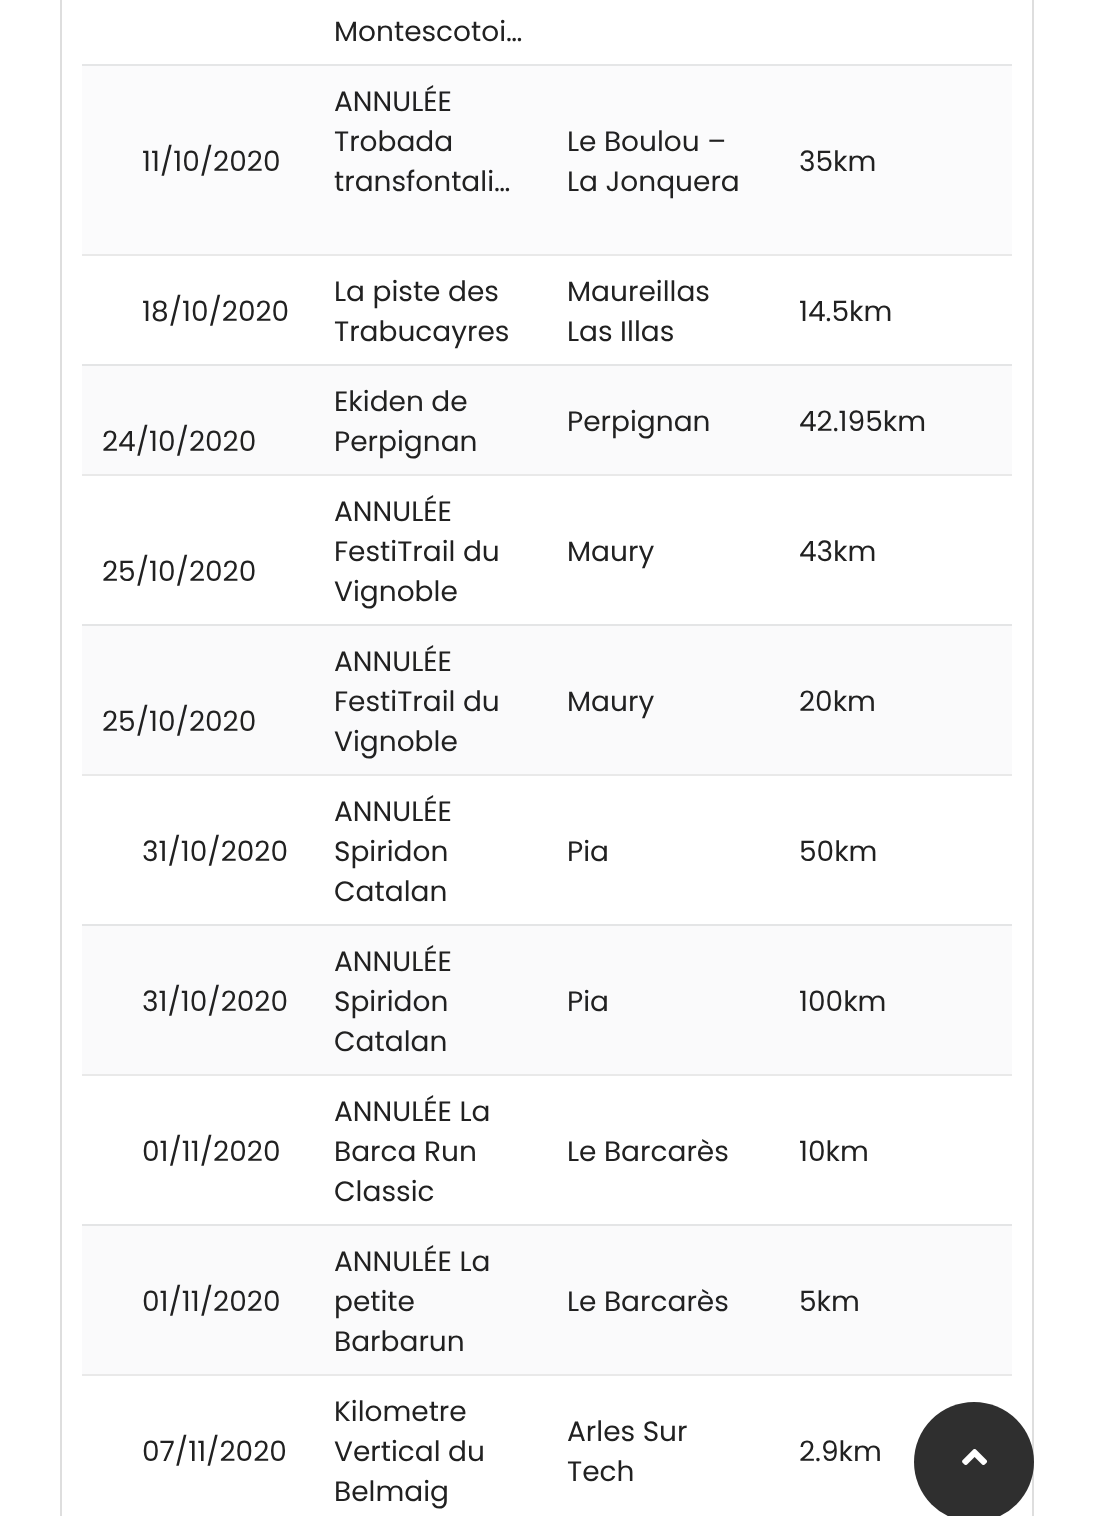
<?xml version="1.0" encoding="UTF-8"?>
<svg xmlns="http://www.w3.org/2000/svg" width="1094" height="1516">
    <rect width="100%" height="100%" fill="#FFFFFF"/>
    <rect x="61" y="-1" width="972" height="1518" fill="none" stroke="#DEDEDE" stroke-width="2"/>
    <text x="334" y="41" font-family="Poppins" font-size="28" fill="#212121">Montescotoi…</text>
    <rect x="82" y="66" width="930" height="188" fill="#FBFBFC"/>
    <rect x="82" y="64" width="930" height="2" fill="#E5E6E7"/>
    <text x="142" y="171" font-family="Poppins" font-size="28" fill="#212121">11/10/2020</text>
    <text font-family="Poppins" font-size="28" fill="#212121">
        <tspan x="334" y="111">ANNULÉE</tspan>
        <tspan x="334" y="151">Trobada</tspan>
        <tspan x="334" y="191">transfontali…</tspan>
    </text>
    <text font-family="Poppins" font-size="28" fill="#212121">
        <tspan x="567" y="151">Le Boulou –</tspan>
        <tspan x="567" y="191">La Jonquera</tspan>
    </text>
    <text x="799" y="171" font-family="Poppins" font-size="28" fill="#212121">35km</text>
    <rect x="82" y="254" width="930" height="2" fill="#E9E9E9"/>
    <text x="142" y="321" font-family="Poppins" font-size="28" fill="#212121">18/10/2020</text>
    <text font-family="Poppins" font-size="28" fill="#212121">
        <tspan x="334" y="301">La piste des</tspan>
        <tspan x="334" y="341">Trabucayres</tspan>
    </text>
    <text font-family="Poppins" font-size="28" fill="#212121">
        <tspan x="567" y="301">Maureillas</tspan>
        <tspan x="567" y="341">Las Illas</tspan>
    </text>
    <text x="799" y="321" font-family="Poppins" font-size="28" fill="#212121">14.5km</text>
    <rect x="82" y="366" width="930" height="108" fill="#FAFAFB"/>
    <text font-family="Poppins" font-size="28" fill="#212121">
        <tspan x="334" y="411">Ekiden de</tspan>
        <tspan x="334" y="451">Perpignan</tspan>
    </text>
    <text x="567" y="431" font-family="Poppins" font-size="28" fill="#212121">Perpignan</text>
    <text x="799" y="431" font-family="Poppins" font-size="28" fill="#212121">42.195km</text>
    <rect x="82" y="364" width="930" height="2" fill="#E4E5E6"/>
    <text x="102" y="451" font-family="Poppins" font-size="28" fill="#212121">24/10/2020</text>
    <rect x="82" y="474" width="930" height="2" fill="#E9E9E9"/>
    <text x="102" y="581" font-family="Poppins" font-size="28" fill="#212121">25/10/2020</text>
    <text font-family="Poppins" font-size="28" fill="#212121">
        <tspan x="334" y="521">ANNULÉE</tspan>
        <tspan x="334" y="561">FestiTrail du</tspan>
        <tspan x="334" y="601">Vignoble</tspan>
    </text>
    <text x="567" y="561" font-family="Poppins" font-size="28" fill="#212121">Maury</text>
    <text x="799" y="561" font-family="Poppins" font-size="28" fill="#212121">43km</text>
    <rect x="82" y="626" width="930" height="148" fill="#FAFAFB"/>
    <rect x="82" y="624" width="930" height="2" fill="#E4E5E6"/>
    <text x="102" y="731" font-family="Poppins" font-size="28" fill="#212121">25/10/2020</text>
    <text font-family="Poppins" font-size="28" fill="#212121">
        <tspan x="334" y="671">ANNULÉE</tspan>
        <tspan x="334" y="711">FestiTrail du</tspan>
        <tspan x="334" y="751">Vignoble</tspan>
    </text>
    <text x="567" y="711" font-family="Poppins" font-size="28" fill="#212121">Maury</text>
    <text x="799" y="711" font-family="Poppins" font-size="28" fill="#212121">20km</text>
    <rect x="82" y="774" width="930" height="2" fill="#E9E9E9"/>
    <text x="142" y="861" font-family="Poppins" font-size="28" fill="#212121">31/10/2020</text>
    <text font-family="Poppins" font-size="28" fill="#212121">
        <tspan x="334" y="821">ANNULÉE</tspan>
        <tspan x="334" y="861">Spiridon</tspan>
        <tspan x="334" y="901">Catalan</tspan>
    </text>
    <text x="567" y="861" font-family="Poppins" font-size="28" fill="#212121">Pia</text>
    <text x="799" y="861" font-family="Poppins" font-size="28" fill="#212121">50km</text>
    <rect x="82" y="926" width="930" height="148" fill="#FAFAFB"/>
    <rect x="82" y="924" width="930" height="2" fill="#E4E5E6"/>
    <text x="142" y="1011" font-family="Poppins" font-size="28" fill="#212121">31/10/2020</text>
    <text font-family="Poppins" font-size="28" fill="#212121">
        <tspan x="334" y="971">ANNULÉE</tspan>
        <tspan x="334" y="1011">Spiridon</tspan>
        <tspan x="334" y="1051">Catalan</tspan>
    </text>
    <text x="567" y="1011" font-family="Poppins" font-size="28" fill="#212121">Pia</text>
    <text x="799" y="1011" font-family="Poppins" font-size="28" fill="#212121">100km</text>
    <rect x="82" y="1074" width="930" height="2" fill="#E9E9E9"/>
    <text x="142" y="1161" font-family="Poppins" font-size="28" fill="#212121">01/11/2020</text>
    <text font-family="Poppins" font-size="28" fill="#212121">
        <tspan x="334" y="1121">ANNULÉE La</tspan>
        <tspan x="334" y="1161">Barca Run</tspan>
        <tspan x="334" y="1201">Classic</tspan>
    </text>
    <text x="567" y="1161" font-family="Poppins" font-size="28" fill="#212121">Le Barcarès</text>
    <text x="799" y="1161" font-family="Poppins" font-size="28" fill="#212121">10km</text>
    <rect x="82" y="1226" width="930" height="148" fill="#FAFAFB"/>
    <rect x="82" y="1224" width="930" height="2" fill="#E4E5E6"/>
    <text x="142" y="1311" font-family="Poppins" font-size="28" fill="#212121">01/11/2020</text>
    <text font-family="Poppins" font-size="28" fill="#212121">
        <tspan x="334" y="1271">ANNULÉE La</tspan>
        <tspan x="334" y="1311">petite</tspan>
        <tspan x="334" y="1351">Barbarun</tspan>
    </text>
    <text x="567" y="1311" font-family="Poppins" font-size="28" fill="#212121">Le Barcarès</text>
    <text x="799" y="1311" font-family="Poppins" font-size="28" fill="#212121">5km</text>
    <rect x="82" y="1374" width="930" height="2" fill="#E9E9E9"/>
    <text x="142" y="1461" font-family="Poppins" font-size="28" fill="#212121">07/11/2020</text>
    <text font-family="Poppins" font-size="28" fill="#212121">
        <tspan x="334" y="1421">Kilometre</tspan>
        <tspan x="334" y="1461">Vertical du</tspan>
        <tspan x="334" y="1501">Belmaig</tspan>
    </text>
    <text font-family="Poppins" font-size="28" fill="#212121">
        <tspan x="567" y="1441">Arles Sur</tspan>
        <tspan x="567" y="1481">Tech</tspan>
    </text>
    <text x="799" y="1461" font-family="Poppins" font-size="28" fill="#212121">2.9km</text>
    <circle cx="974" cy="1462" r="60" fill="#2F2F2F"/>
    <image x="962" y="1449" width="26" height="16" href="img_01.png"/>
</svg>
